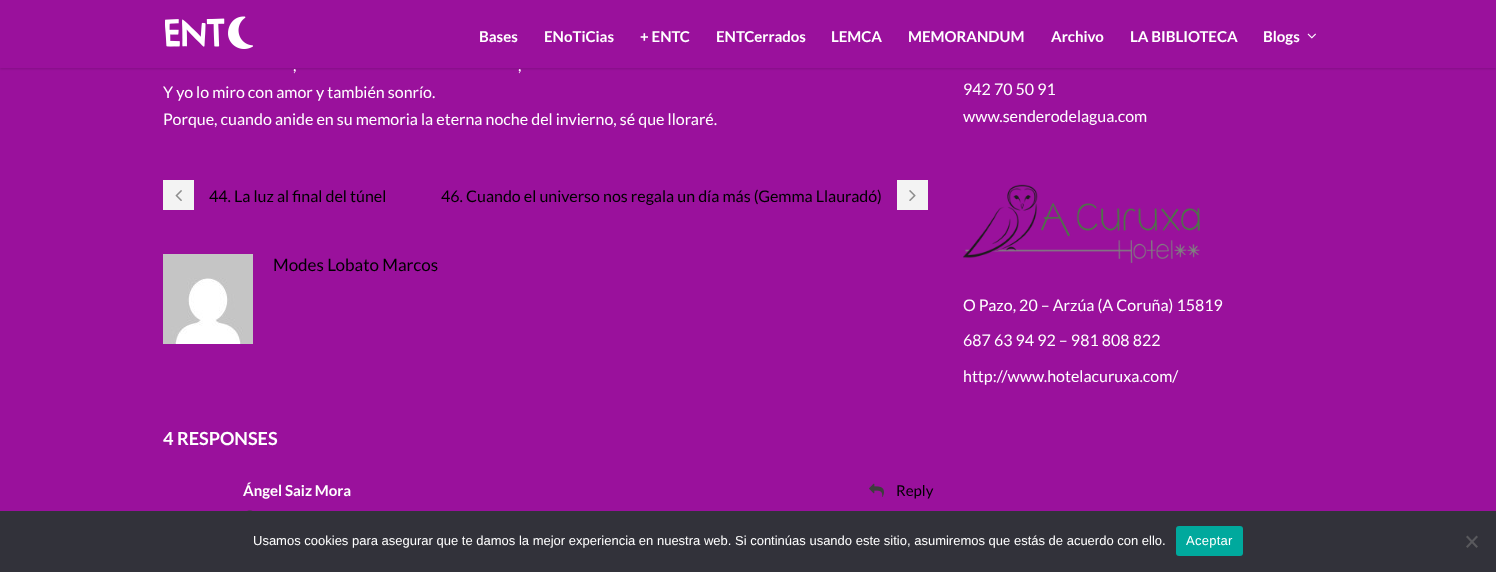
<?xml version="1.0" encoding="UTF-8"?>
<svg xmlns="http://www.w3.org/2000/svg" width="1496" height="572">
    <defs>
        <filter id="blur1" x="-50%" y="-200%" width="200%" height="500%"><feGaussianBlur stdDeviation="1"/></filter>
    </defs>
    <rect width="100%" height="100%" fill="#9A119C"/>
    <rect x="0" y="1" width="1496" height="68" fill="#000000" fill-opacity="0.15" filter="url(#blur1)"/>
    <rect x="0" y="0" width="1496" height="68" fill="#9A119C"/>
    <image x="165" y="16" width="88" height="33" href="img_01.png"/>
    <text x="479" y="42" font-family="Lato" font-size="15" font-weight="700" fill="#FFFFFF">Bases</text>
    <text x="544" y="42" font-family="Lato" font-size="15" font-weight="700" fill="#FFFFFF">ENoTiCias</text>
    <text x="640" y="42" font-family="Lato" font-size="15" font-weight="700" fill="#FFFFFF">+ ENTC</text>
    <text x="716" y="42" font-family="Lato" font-size="15" font-weight="700" fill="#FFFFFF">ENTCerrados</text>
    <text x="831" y="42" font-family="Lato" font-size="15" font-weight="700" fill="#FFFFFF">LEMCA</text>
    <text x="908" y="42" font-family="Lato" font-size="15" font-weight="700" fill="#FFFFFF">MEMORANDUM</text>
    <text x="1051" y="42" font-family="Lato" font-size="15" font-weight="700" fill="#FFFFFF">Archivo</text>
    <text x="1130" y="42" font-family="Lato" font-size="15" font-weight="700" fill="#FFFFFF">LA BIBLIOTECA</text>
    <text x="1263" y="42" font-family="Lato" font-size="15" font-weight="700" fill="#FFFFFF">Blogs</text>
    <image x="1307" y="33" width="9" height="6" href="img_02.png"/>
    <text x="293" y="71" font-family="Lato" font-size="16" fill="#FFFFFF">,</text>
    <text x="518" y="71" font-family="Lato" font-size="16" fill="#FFFFFF">,</text>
    <text font-family="Lato" font-size="16" fill="#FFFFFF">
        <tspan x="163" y="98">Y yo lo miro con amor y también sonrío.</tspan>
        <tspan x="163" y="125">Porque, cuando anide en su memoria la eterna noche del invierno, sé que lloraré.</tspan>
    </text>
    <rect x="163" y="180" width="31" height="30" fill="#F3F3F3"/>
    <image x="175" y="190" width="7" height="11" href="img_03.png"/>
    <text x="209" y="202" font-family="Lato" font-size="16" fill="#000000">44. La luz al final del túnel</text>
    <text x="441" y="202" font-family="Lato" font-size="16" fill="#000000">46. Cuando el universo nos regala un día más (Gemma Llauradó)</text>
    <rect x="897" y="180" width="31" height="30" fill="#F3F3F3"/>
    <image x="909" y="190" width="7" height="11" href="img_04.png"/>
    <image x="163" y="254" width="90" height="90" href="img_05.png"/>
    <text x="273" y="271" font-family="Lato" font-size="17" fill="#000000">Modes Lobato Marcos</text>
    <text x="163" y="445" font-family="Lato" font-size="18" font-weight="700" fill="#FFFFFF">4 RESPONSES</text>
    <text x="243" y="496" font-family="Lato" font-size="15" font-weight="700" fill="#FFFFFF">Ángel Saiz Mora</text>
    <image x="869" y="483" width="15" height="14" href="img_06.png"/>
    <text x="896" y="496" font-family="Lato" font-size="15" fill="#000000">Reply</text>
    <image x="247" y="510" width="6" height="1" href="img_07.png"/>
    <text font-family="Lato" font-size="16" fill="#FFFFFF">
        <tspan x="963" y="95">942 70 50 91</tspan>
        <tspan x="963" y="122">www.senderodelagua.com</tspan>
    </text>
    <image x="963" y="184" width="237" height="79" href="img_08.png"/>
    <text x="963" y="311" font-family="Lato" font-size="16" fill="#FFFFFF">O Pazo, 20 – Arzúa (A Coruña) 15819</text>
    <text x="963" y="346" font-family="Lato" font-size="16" fill="#FFFFFF">687 63 94 92 – 981 808 822</text>
    <text x="963" y="382" font-family="Lato" font-size="16" fill="#FFFFFF">http://www.hotelacuruxa.com/</text>
    <rect x="0" y="511" width="1496" height="61" fill="#32323A"/>
    <text x="253" y="545" font-family="Liberation Sans" font-size="13" fill="#FFFFFF">Usamos cookies para asegurar que te damos la mejor experiencia en nuestra web. Si continúas usando este sitio, asumiremos que estás de acuerdo con ello.</text>
    <rect x="1176" y="526" width="67" height="30" rx="3" fill="#00A99D"/>
    <text x="1186" y="545" font-family="Liberation Sans" font-size="13" letter-spacing="0.25" fill="#FFFFFF">Aceptar</text>
    <path d="M 1476.5 535.5 L 1478 537 L 1467.5 548 L 1466 546.5 Z" fill="#59595D"/>
    <path d="M 1466 537 L 1467.5 535.5 L 1478 546.5 L 1476.5 548 Z" fill="#59595D"/>
</svg>
